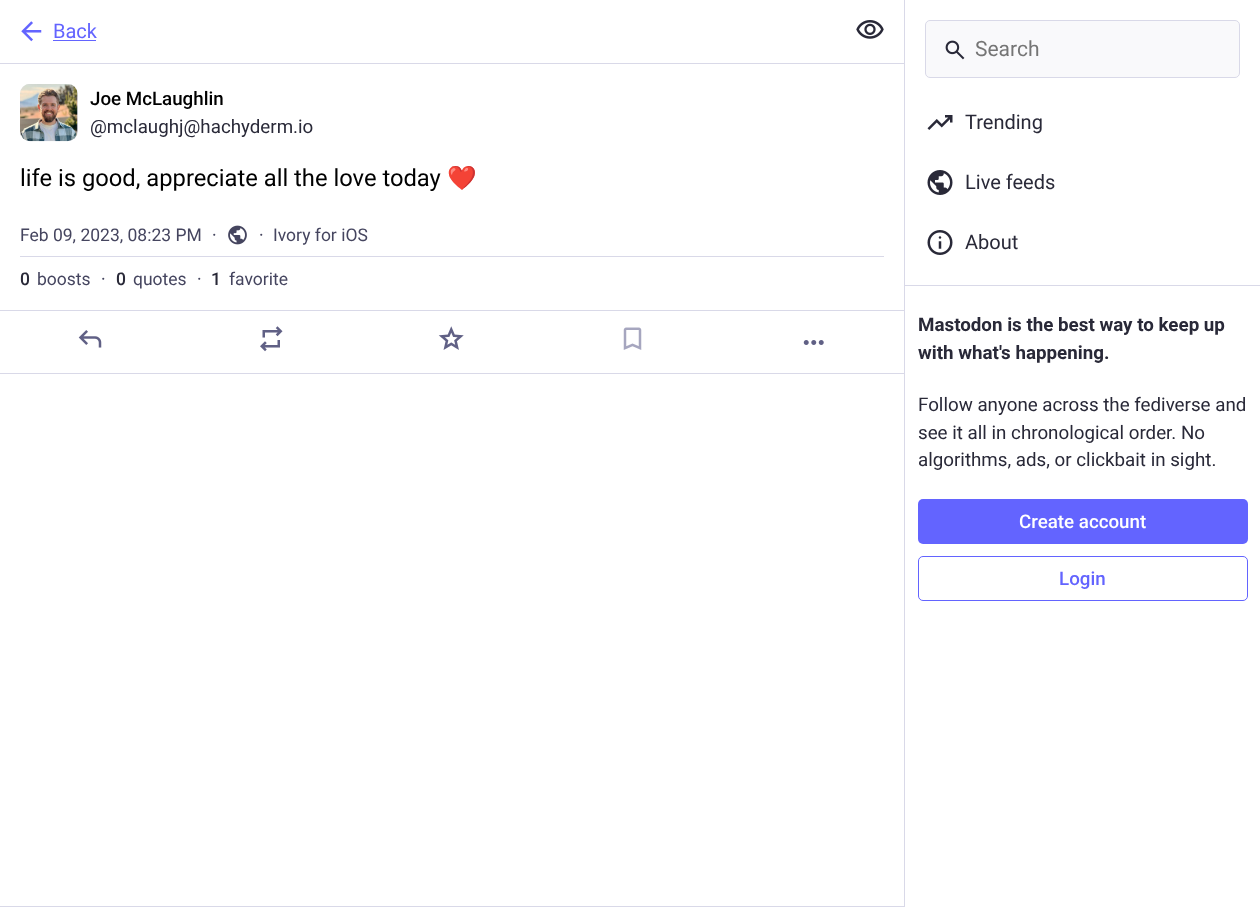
<?xml version="1.0" encoding="UTF-8"?>
<svg xmlns="http://www.w3.org/2000/svg" width="1260" height="907">
    <rect width="100%" height="100%" fill="#FFFFFF"/>
    <rect x="0" y="63" width="904" height="1" fill="#D9D9E8"/>
    <image x="21" y="21" width="21" height="21" href="img_01.png"/>
    <text x="53" y="38" font-family="Roboto" font-size="20" fill="#6364FF">Back</text>
    <rect x="53" y="40" width="43" height="1" fill="#6364FF"/>
    <image x="856" y="20" width="28" height="19" href="img_02.png"/>
    <rect x="0" y="906" width="904" height="1" fill="#D9D9E8"/>
    <rect x="20" y="84" width="58" height="57" rx="10" fill="#E8E6F0"/>
    <image x="20" y="84" width="58" height="58" href="img_03.png"/>
    <text x="90" y="105" font-family="Roboto" font-size="18.75" font-weight="500" fill="#000000">Joe McLaughlin</text>
    <text x="90" y="133" font-family="Roboto" font-size="18.75" fill="#292938">@mclaughj@hachyderm.io</text>
    <text x="20" y="186" font-family="Roboto" font-size="23.75" fill="#000000">life is good, appreciate all the love today</text>
    <text x="447" y="186" font-family="Noto Color Emoji" font-size="23.75" fill="#000000">❤️</text>
    <rect x="20" y="256" width="864" height="1" fill="#D9D9E8"/>
    <text x="20" y="241" font-family="Roboto" font-size="17.5" fill="#45455F">Feb 09, 2023, 08:23 PM</text>
    <text x="212" y="241" font-family="Roboto" font-size="17.5" fill="#45455F">·</text>
    <image x="228" y="225" width="19" height="20" href="img_04.png"/>
    <text x="259" y="241" font-family="Roboto" font-size="17.5" fill="#45455F">·</text>
    <text x="273" y="241" font-family="Roboto" font-size="17.5" fill="#45455F">Ivory for iOS</text>
    <text x="20" y="285" font-family="Roboto" font-size="17.5" font-weight="500" fill="#292938">0</text>
    <text x="37" y="285" font-family="Roboto" font-size="17.5" fill="#45455F">boosts</text>
    <text x="101" y="285" font-family="Roboto" font-size="17.5" fill="#45455F">·</text>
    <text x="116" y="285" font-family="Roboto" font-size="17.5" font-weight="500" fill="#292938">0</text>
    <text x="133" y="285" font-family="Roboto" font-size="17.5" fill="#45455F">quotes</text>
    <text x="197" y="285" font-family="Roboto" font-size="17.5" fill="#45455F">·</text>
    <text x="211" y="285" font-family="Roboto" font-size="17.5" font-weight="500" fill="#292938">1</text>
    <text x="229" y="285" font-family="Roboto" font-size="17.5" fill="#45455F">favorite</text>
    <rect x="0" y="310" width="904" height="1" fill="#D9D9E8"/>
    <rect x="0" y="373" width="904" height="1" fill="#D9D9E8"/>
    <image x="78" y="330" width="24" height="18" href="img_05.png"/>
    <image x="260" y="326" width="23" height="26" href="img_06.png"/>
    <image x="438" y="326" width="26" height="24" href="img_07.png"/>
    <image x="623" y="327" width="19" height="23" href="img_08.png"/>
    <image x="803" y="340" width="21" height="5" href="img_09.png"/>
    <rect x="904" y="0" width="1" height="907" fill="#D9D9E8"/>
    <rect x="925.5" y="20.5" width="314" height="57" rx="4.5" fill="#F9F9FB" stroke="#D9D9E8"/>
    <image x="945" y="40" width="20" height="20" href="img_10.png"/>
    <text x="975" y="56" font-family="Roboto" font-size="21" fill="#757575">Search</text>
    <image x="927" y="115" width="26" height="15" href="img_11.png"/>
    <text x="965" y="129" font-family="Roboto" font-size="20" fill="#292938">Trending</text>
    <image x="927" y="170" width="26" height="25" href="img_12.png"/>
    <text x="965" y="189" font-family="Roboto" font-size="20" fill="#292938">Live feeds</text>
    <image x="927" y="230" width="26" height="25" href="img_13.png"/>
    <text x="965" y="249" font-family="Roboto" font-size="20" fill="#292938">About</text>
    <rect x="905" y="285" width="355" height="1" fill="#D9D9E8"/>
    <text font-family="Roboto" font-size="18.75" font-weight="700" fill="#292938">
        <tspan x="918" y="331">Mastodon is the best way to keep up</tspan>
        <tspan x="918" y="359">with what's happening.</tspan>
    </text>
    <text font-family="Roboto" font-size="18.75" fill="#292938">
        <tspan x="918" y="411">Follow anyone across the fediverse and</tspan>
        <tspan x="918" y="439">see it all in chronological order. No</tspan>
        <tspan x="918" y="466">algorithms, ads, or clickbait in sight.</tspan>
    </text>
    <rect x="918" y="499" width="330" height="45" rx="5" fill="#6364FF"/>
    <text x="1019" y="528" font-family="Roboto" font-size="18.75" font-weight="500" fill="#FFFFFF">Create account</text>
    <rect x="918.5" y="556.5" width="329" height="44" rx="4.5" fill="none" stroke="#6364FF"/>
    <text x="1059" y="585" font-family="Roboto" font-size="18.75" font-weight="500" fill="#6364FF">Login</text>
</svg>
